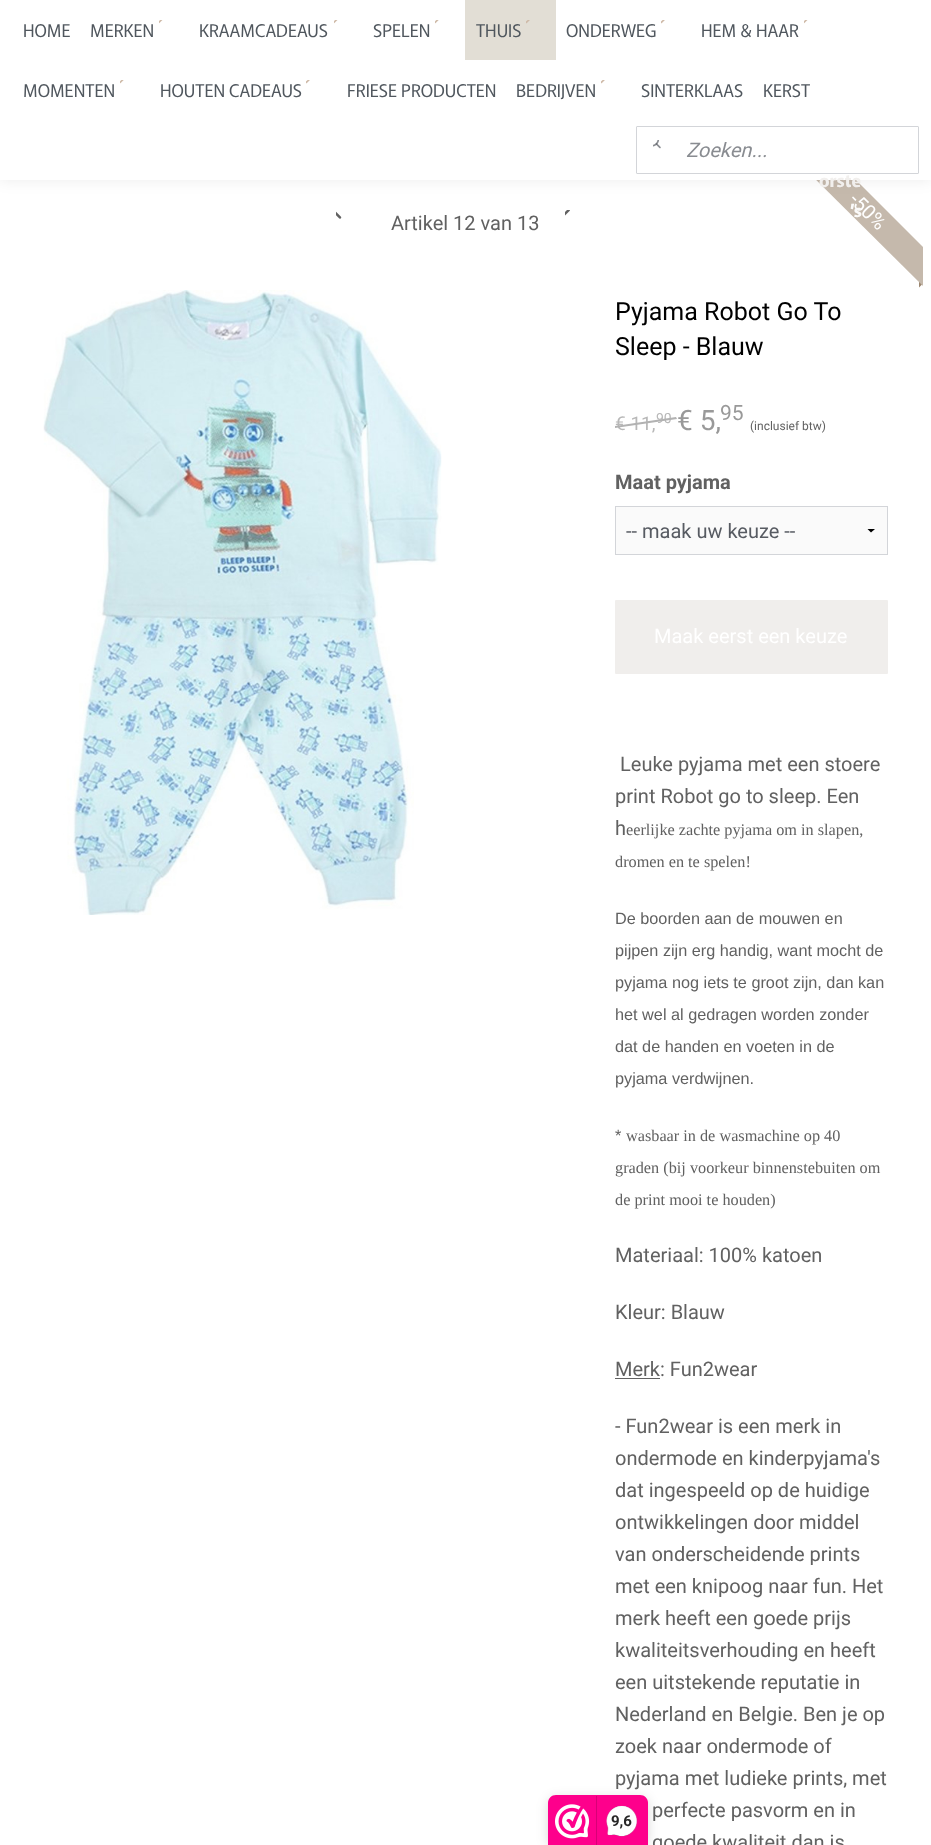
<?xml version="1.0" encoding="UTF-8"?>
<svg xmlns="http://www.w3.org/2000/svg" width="931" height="1845">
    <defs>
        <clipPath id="clip1"><rect x="773" y="160" width="150" height="150"/></clipPath>
        <filter id="blur1" x="-50%" y="-200%" width="200%" height="500%"><feGaussianBlur stdDeviation="7.5"/></filter>
        <filter id="blur2" x="-50%" y="-200%" width="200%" height="500%"><feGaussianBlur stdDeviation="6"/></filter>
    </defs>
    <rect width="100%" height="100%" fill="#FFFFFF"/>
    <path d="M 919 287.5 V 280 L 922.5 284 Z" fill="#9B8670"/>
    <g clip-path="url(#clip1)">
        <path d="M 811 135 L 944 268 L 924 287 L 791 155 Z" fill="#C5B9AC"/>
    </g>
    <rect x="0" y="0" width="931" height="180" fill="#000000" fill-opacity="0.08" filter="url(#blur1)"/>
    <rect x="0" y="0" width="931" height="180" fill="#FFFFFF"/>
    <text x="23" y="37" font-family="Murecho" font-size="17.5" fill="#50575E">HOME</text>
    <image x="159" y="20" width="4" height="4" href="img_01.png"/>
    <text x="90" y="37" font-family="Murecho" font-size="17.5" fill="#50575E">MERKEN</text>
    <text x="848" y="201" transform="rotate(45 848 201)" font-family="Roboto" font-size="20" fill="#FFFFFF">-50%</text>
    <text x="850" y="217" font-family="Murecho" font-size="17.5" font-weight="700" fill="#FBFAF9">’s</text>
    <image x="334" y="20" width="4" height="4" href="img_01.png"/>
    <text x="199" y="37" font-family="Murecho" font-size="17.5" fill="#50575E">KRAAMCADEAUS</text>
    <image x="435" y="20" width="4" height="4" href="img_02.png"/>
    <text x="373" y="37" font-family="Murecho" font-size="17.5" fill="#50575E">SPELEN</text>
    <rect x="465" y="0" width="91" height="60" fill="#E2DED5"/>
    <image x="526" y="20" width="4" height="4" href="img_03.png"/>
    <text x="476" y="37" font-family="Murecho" font-size="17.5" fill="#50575E">THUIS</text>
    <image x="661" y="20" width="4" height="4" href="img_04.png"/>
    <text x="566" y="37" font-family="Murecho" font-size="17.5" fill="#50575E">ONDERWEG</text>
    <image x="804" y="20" width="4" height="4" href="img_01.png"/>
    <text x="701" y="37" font-family="Murecho" font-size="17.5" fill="#50575E">HEM &amp; HAAR</text>
    <image x="120" y="80" width="4" height="4" href="img_02.png"/>
    <text x="23" y="97" font-family="Murecho" font-size="17.5" fill="#50575E">MOMENTEN</text>
    <image x="306" y="80" width="4" height="4" href="img_04.png"/>
    <text x="160" y="97" font-family="Murecho" font-size="17.5" fill="#50575E">HOUTEN CADEAUS</text>
    <text x="819" y="187" font-family="Murecho" font-size="17.5" font-weight="700" fill="#F1EFED">orste</text>
    <text x="347" y="97" font-family="Murecho" font-size="17.5" fill="#50575E">FRIESE PRODUCTEN</text>
    <image x="601" y="80" width="4" height="4" href="img_04.png"/>
    <text x="516" y="97" font-family="Murecho" font-size="17.5" fill="#50575E">BEDRIJVEN</text>
    <text x="641" y="97" font-family="Murecho" font-size="17.5" fill="#50575E">SINTERKLAAS</text>
    <text x="763" y="97" font-family="Murecho" font-size="17.5" fill="#50575E">KERST</text>
    <rect x="636.5" y="126.5" width="282" height="47" rx="0.5" fill="none" stroke="#D3D5D9"/>
    <image x="653" y="140" width="8" height="9" href="img_05.png"/>
    <text x="686" y="157" font-family="Roboto" font-size="20" font-style="italic" fill="#898C91">Zoeken...</text>
    <image x="336" y="211" width="6" height="8" href="img_06.png"/>
    <text x="391" y="230" font-family="Roboto" font-size="20" fill="#616161">Artikel 12 van 13</text>
    <image x="565" y="210" width="5" height="6" href="img_07.png"/>
    <image x="43" y="290" width="399" height="625" href="img_08.png"/>
    <text font-family="Roboto" font-size="25" fill="#000000">
        <tspan x="615" y="320">Pyjama Robot Go To</tspan>
        <tspan x="615" y="355">Sleep - Blauw</tspan>
    </text>
    <text x="615" y="430" font-family="Roboto" font-size="19" fill="#B8B8B8">€ 11,</text>
    <text x="656" y="423" font-family="Roboto" font-size="14" fill="#B8B8B8">90</text>
    <path d="M 615 426 L 676 417 L 677 419 L 615 428 Z" fill="#B2B2B2"/>
    <text x="677" y="430" font-family="Roboto" font-size="28" fill="#999999">€ 5,</text>
    <text x="720" y="420" font-family="Roboto" font-size="21" fill="#999999">95</text>
    <text x="750" y="430" font-family="Roboto" font-size="12" fill="#616161">(inclusief btw)</text>
    <text x="615" y="489" font-family="Roboto" font-size="20" font-weight="700" fill="#616161">Maat pyjama</text>
    <rect x="616" y="507" width="271" height="47" fill="#FAFAFA"/>
    <path d="M 875 529 L 871 532.5 L 867.5 529 Z" fill="#000000"/>
    <rect x="615.5" y="506.5" width="272" height="48" fill="none" stroke="#D3D5D9"/>
    <text x="626" y="538" font-family="Roboto" font-size="20" fill="#575B62">-- maak uw keuze --</text>
    <rect x="615" y="600" width="273" height="74" rx="1" fill="#F0EEEC"/>
    <text x="654" y="643" font-family="Roboto" font-size="20" fill="#FFFFFF">Maak eerst een keuze</text>
    <text x="620" y="771" font-family="Roboto" font-size="20" fill="#616161">Leuke pyjama met een stoere</text>
    <text font-family="Roboto" font-size="20" fill="#616161">
        <tspan x="615" y="803">print Robot go to sleep. Een</tspan>
        <tspan x="615" y="835">h</tspan>
    </text>
    <text x="626" y="835" font-family="Liberation Serif" font-size="16.25" fill="#616161">eerlijke zachte pyjama om in slapen,</text>
    <text x="615" y="867" font-family="Liberation Serif" font-size="16.25" fill="#616161">dromen en te spelen!</text>
    <text font-family="Liberation Sans" font-size="16.25" fill="#616161">
        <tspan x="615" y="924">De boorden aan de mouwen en</tspan>
        <tspan x="615" y="956">pijpen zijn erg handig, want mocht de</tspan>
        <tspan x="615" y="988">pyjama nog iets te groot zijn, dan kan</tspan>
        <tspan x="615" y="1020">het wel al gedragen worden zonder</tspan>
        <tspan x="615" y="1052">dat de handen en voeten in de</tspan>
        <tspan x="615" y="1084">pyjama verdwijnen.</tspan>
    </text>
    <text x="615" y="1141" font-family="Liberation Sans" font-size="16.25" fill="#616161">*</text>
    <text x="626" y="1141" font-family="Liberation Serif" font-size="16.25" fill="#616161">wasbaar in de wasmachine op 40</text>
    <text font-family="Liberation Serif" font-size="16.25" fill="#616161">
        <tspan x="615" y="1173">graden (bij voorkeur binnenstebuiten om</tspan>
        <tspan x="615" y="1205">de print mooi te houden)</tspan>
    </text>
    <text x="615" y="1262" font-family="Roboto" font-size="20" fill="#616161">Materiaal: 100% katoen</text>
    <text x="615" y="1319" font-family="Roboto" font-size="20" fill="#616161">Kleur: Blauw</text>
    <text x="615" y="1376" font-family="Roboto" font-size="20" fill="#616161">Merk: Fun2wear</text>
    <rect x="615" y="1378" width="45" height="1" fill="#616161"/>
    <text font-family="Roboto" font-size="20" fill="#616161">
        <tspan x="615" y="1433">- Fun2wear is een merk in</tspan>
        <tspan x="615" y="1465">ondermode en kinderpyjama's</tspan>
        <tspan x="615" y="1497">dat ingespeeld op de huidige</tspan>
        <tspan x="615" y="1529">ontwikkelingen door middel</tspan>
        <tspan x="615" y="1561">van onderscheidende prints</tspan>
        <tspan x="615" y="1593">met een knipoog naar fun. Het</tspan>
        <tspan x="615" y="1625">merk heeft een goede prijs</tspan>
        <tspan x="615" y="1657">kwaliteitsverhouding en heeft</tspan>
        <tspan x="615" y="1689">een uitstekende reputatie in</tspan>
        <tspan x="615" y="1721">Nederland en Belgie. Ben je op</tspan>
        <tspan x="615" y="1753">zoek naar ondermode of</tspan>
        <tspan x="615" y="1785">pyjama met ludieke prints, met</tspan>
    </text>
    <text font-family="Roboto" font-size="20" fill="#616161">
        <tspan x="652" y="1817">perfecte pasvorm en in</tspan>
        <tspan x="652" y="1849">goede kwaliteit dan is</tspan>
    </text>
    <rect x="548" y="1798" width="100" height="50" rx="8" fill="#000000" fill-opacity="0.15" filter="url(#blur2)"/>
    <path d="M 556 1795 H 640 C 644.5 1795 648 1798.5 648 1803 V 1845 H 548 V 1803 C 548 1798.5 551.5 1795 556 1795 Z" fill="#FE008C"/>
    <image x="555" y="1804" width="35" height="35" href="img_09.png"/>
    <rect x="596" y="1796" width="1" height="49" fill="#D80077"/>
    <image x="606" y="1805" width="32" height="32" href="img_10.png"/>
    <text x="611" y="1826" font-family="Roboto" font-size="15" font-weight="700" fill="#272626">9,6</text>
</svg>
